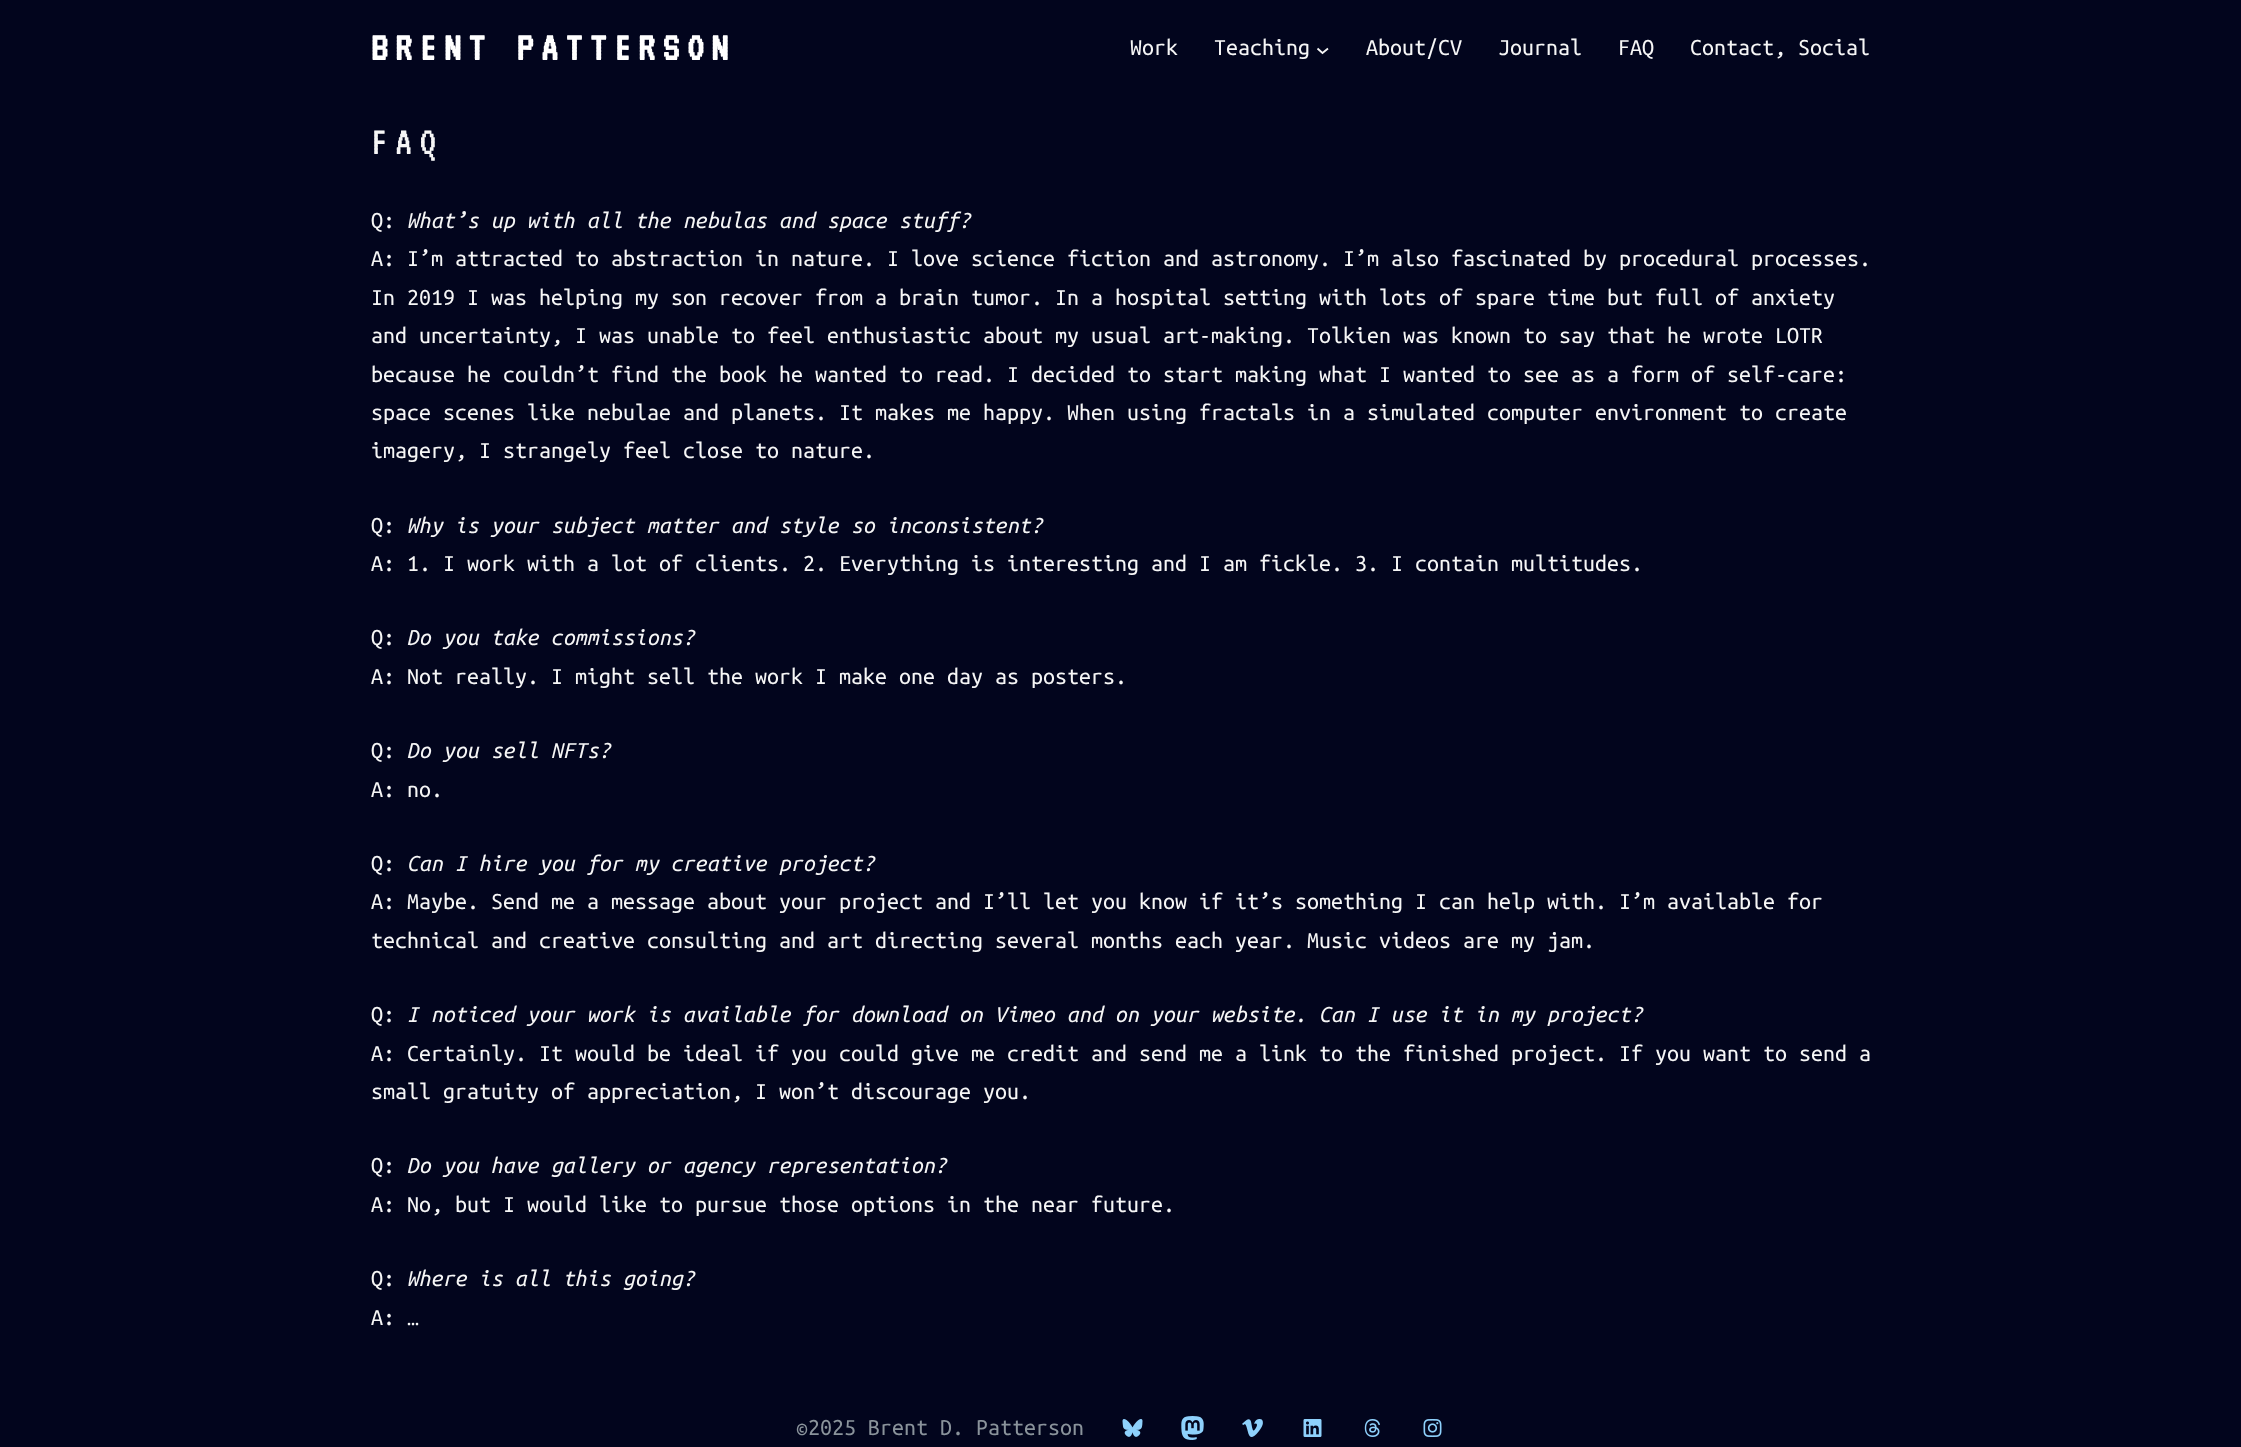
<?xml version="1.0" encoding="UTF-8"?>
<svg xmlns="http://www.w3.org/2000/svg" width="2241" height="1447">
    <rect width="100%" height="100%" fill="#02051D"/>
    <text x="371" y="60" font-family="'VT323'" font-size="42" font-weight="700" letter-spacing="7.5" fill="#FFFFFF">BRENT PATTERSON</text>
    <text x="1130" y="55" font-family="Ubuntu Mono" font-size="24" fill="#F6F6F6">Work</text>
    <text x="1214" y="55" font-family="Ubuntu Mono" font-size="24" fill="#F6F6F6">Teaching</text>
    <path d="M 1317.5 48.5 L 1322.5 53 L 1328 48.5" fill="none" stroke="#F6F6F6" stroke-width="1.8"/>
    <text x="1366" y="55" font-family="Ubuntu Mono" font-size="24" fill="#F6F6F6">About/CV</text>
    <text x="1498" y="55" font-family="Ubuntu Mono" font-size="24" fill="#F6F6F6">Journal</text>
    <text x="1618" y="55" font-family="Ubuntu Mono" font-size="24" fill="#F6F6F6">FAQ</text>
    <text x="1690" y="55" font-family="Ubuntu Mono" font-size="24" fill="#F6F6F6">Contact, Social</text>
    <text x="371" y="154" font-family="'VT323'" font-size="42" letter-spacing="7.5" fill="#F6F6F6">FAQ</text>
    <text x="371" y="228" font-family="Ubuntu Mono" font-size="24" fill="#F6F6F6">Q:</text>
    <text x="407" y="228" font-family="Ubuntu Mono" font-size="24" font-style="italic" fill="#F6F6F6">What’s up with all the nebulas and space stuff?</text>
    <text font-family="Ubuntu Mono" font-size="24" fill="#F6F6F6">
        <tspan x="371" y="266">A: I’m attracted to abstraction in nature. I love science fiction and astronomy. I’m also fascinated by procedural processes.</tspan>
        <tspan x="371" y="305">In 2019 I was helping my son recover from a brain tumor. In a hospital setting with lots of spare time but full of anxiety</tspan>
        <tspan x="371" y="343">and uncertainty, I was unable to feel enthusiastic about my usual art-making. Tolkien was known to say that he wrote LOTR</tspan>
        <tspan x="371" y="382">because he couldn’t find the book he wanted to read. I decided to start making what I wanted to see as a form of self-care:</tspan>
        <tspan x="371" y="420">space scenes like nebulae and planets. It makes me happy. When using fractals in a simulated computer environment to create</tspan>
        <tspan x="371" y="458">imagery, I strangely feel close to nature.</tspan>
    </text>
    <text x="371" y="533" font-family="Ubuntu Mono" font-size="24" fill="#F6F6F6">Q:</text>
    <text x="407" y="533" font-family="Ubuntu Mono" font-size="24" font-style="italic" fill="#F6F6F6">Why is your subject matter and style so inconsistent?</text>
    <text x="371" y="571" font-family="Ubuntu Mono" font-size="24" fill="#F6F6F6">A: 1. I work with a lot of clients. 2. Everything is interesting and I am fickle. 3. I contain multitudes.</text>
    <text x="371" y="645" font-family="Ubuntu Mono" font-size="24" fill="#F6F6F6">Q:</text>
    <text x="407" y="645" font-family="Ubuntu Mono" font-size="24" font-style="italic" fill="#F6F6F6">Do you take commissions?</text>
    <text x="371" y="684" font-family="Ubuntu Mono" font-size="24" fill="#F6F6F6">A: Not really. I might sell the work I make one day as posters.</text>
    <text x="371" y="758" font-family="Ubuntu Mono" font-size="24" fill="#F6F6F6">Q:</text>
    <text x="407" y="758" font-family="Ubuntu Mono" font-size="24" font-style="italic" fill="#F6F6F6">Do you sell NFTs?</text>
    <text x="371" y="797" font-family="Ubuntu Mono" font-size="24" fill="#F6F6F6">A: no.</text>
    <text x="371" y="871" font-family="Ubuntu Mono" font-size="24" fill="#F6F6F6">Q:</text>
    <text x="407" y="871" font-family="Ubuntu Mono" font-size="24" font-style="italic" fill="#F6F6F6">Can I hire you for my creative project?</text>
    <text font-family="Ubuntu Mono" font-size="24" fill="#F6F6F6">
        <tspan x="371" y="909">A: Maybe. Send me a message about your project and I’ll let you know if it’s something I can help with. I’m available for</tspan>
        <tspan x="371" y="948">technical and creative consulting and art directing several months each year. Music videos are my jam.</tspan>
    </text>
    <text x="371" y="1022" font-family="Ubuntu Mono" font-size="24" fill="#F6F6F6">Q:</text>
    <text x="407" y="1022" font-family="Ubuntu Mono" font-size="24" font-style="italic" fill="#F6F6F6">I noticed your work is available for download on Vimeo and on your website. Can I use it in my project?</text>
    <text font-family="Ubuntu Mono" font-size="24" fill="#F6F6F6">
        <tspan x="371" y="1061">A: Certainly. It would be ideal if you could give me credit and send me a link to the finished project. If you want to send a</tspan>
        <tspan x="371" y="1099">small gratuity of appreciation, I won’t discourage you.</tspan>
    </text>
    <text x="371" y="1173" font-family="Ubuntu Mono" font-size="24" fill="#F6F6F6">Q:</text>
    <text x="407" y="1173" font-family="Ubuntu Mono" font-size="24" font-style="italic" fill="#F6F6F6">Do you have gallery or agency representation?</text>
    <text x="371" y="1212" font-family="Ubuntu Mono" font-size="24" fill="#F6F6F6">A: No, but I would like to pursue those options in the near future.</text>
    <text x="371" y="1286" font-family="Ubuntu Mono" font-size="24" fill="#F6F6F6">Q:</text>
    <text x="407" y="1286" font-family="Ubuntu Mono" font-size="24" font-style="italic" fill="#F6F6F6">Where is all this going?</text>
    <text x="371" y="1325" font-family="Ubuntu Mono" font-size="24" fill="#F6F6F6">A: …</text>
    <text x="796" y="1435" font-family="Ubuntu Mono" font-size="24" fill="#8A939B">©2025 Brent D. Patterson</text>
    <image x="1122" y="1419" width="21" height="18" href="img_01.png"/>
    <image x="1181" y="1416" width="23" height="24" href="img_02.png"/>
    <image x="1242" y="1419" width="21" height="18" href="img_03.png"/>
    <image x="1303" y="1419" width="19" height="18" href="img_04.png"/>
    <image x="1364" y="1419" width="16" height="18" href="img_05.png"/>
    <image x="1423" y="1419" width="19" height="18" href="img_06.png"/>
</svg>
